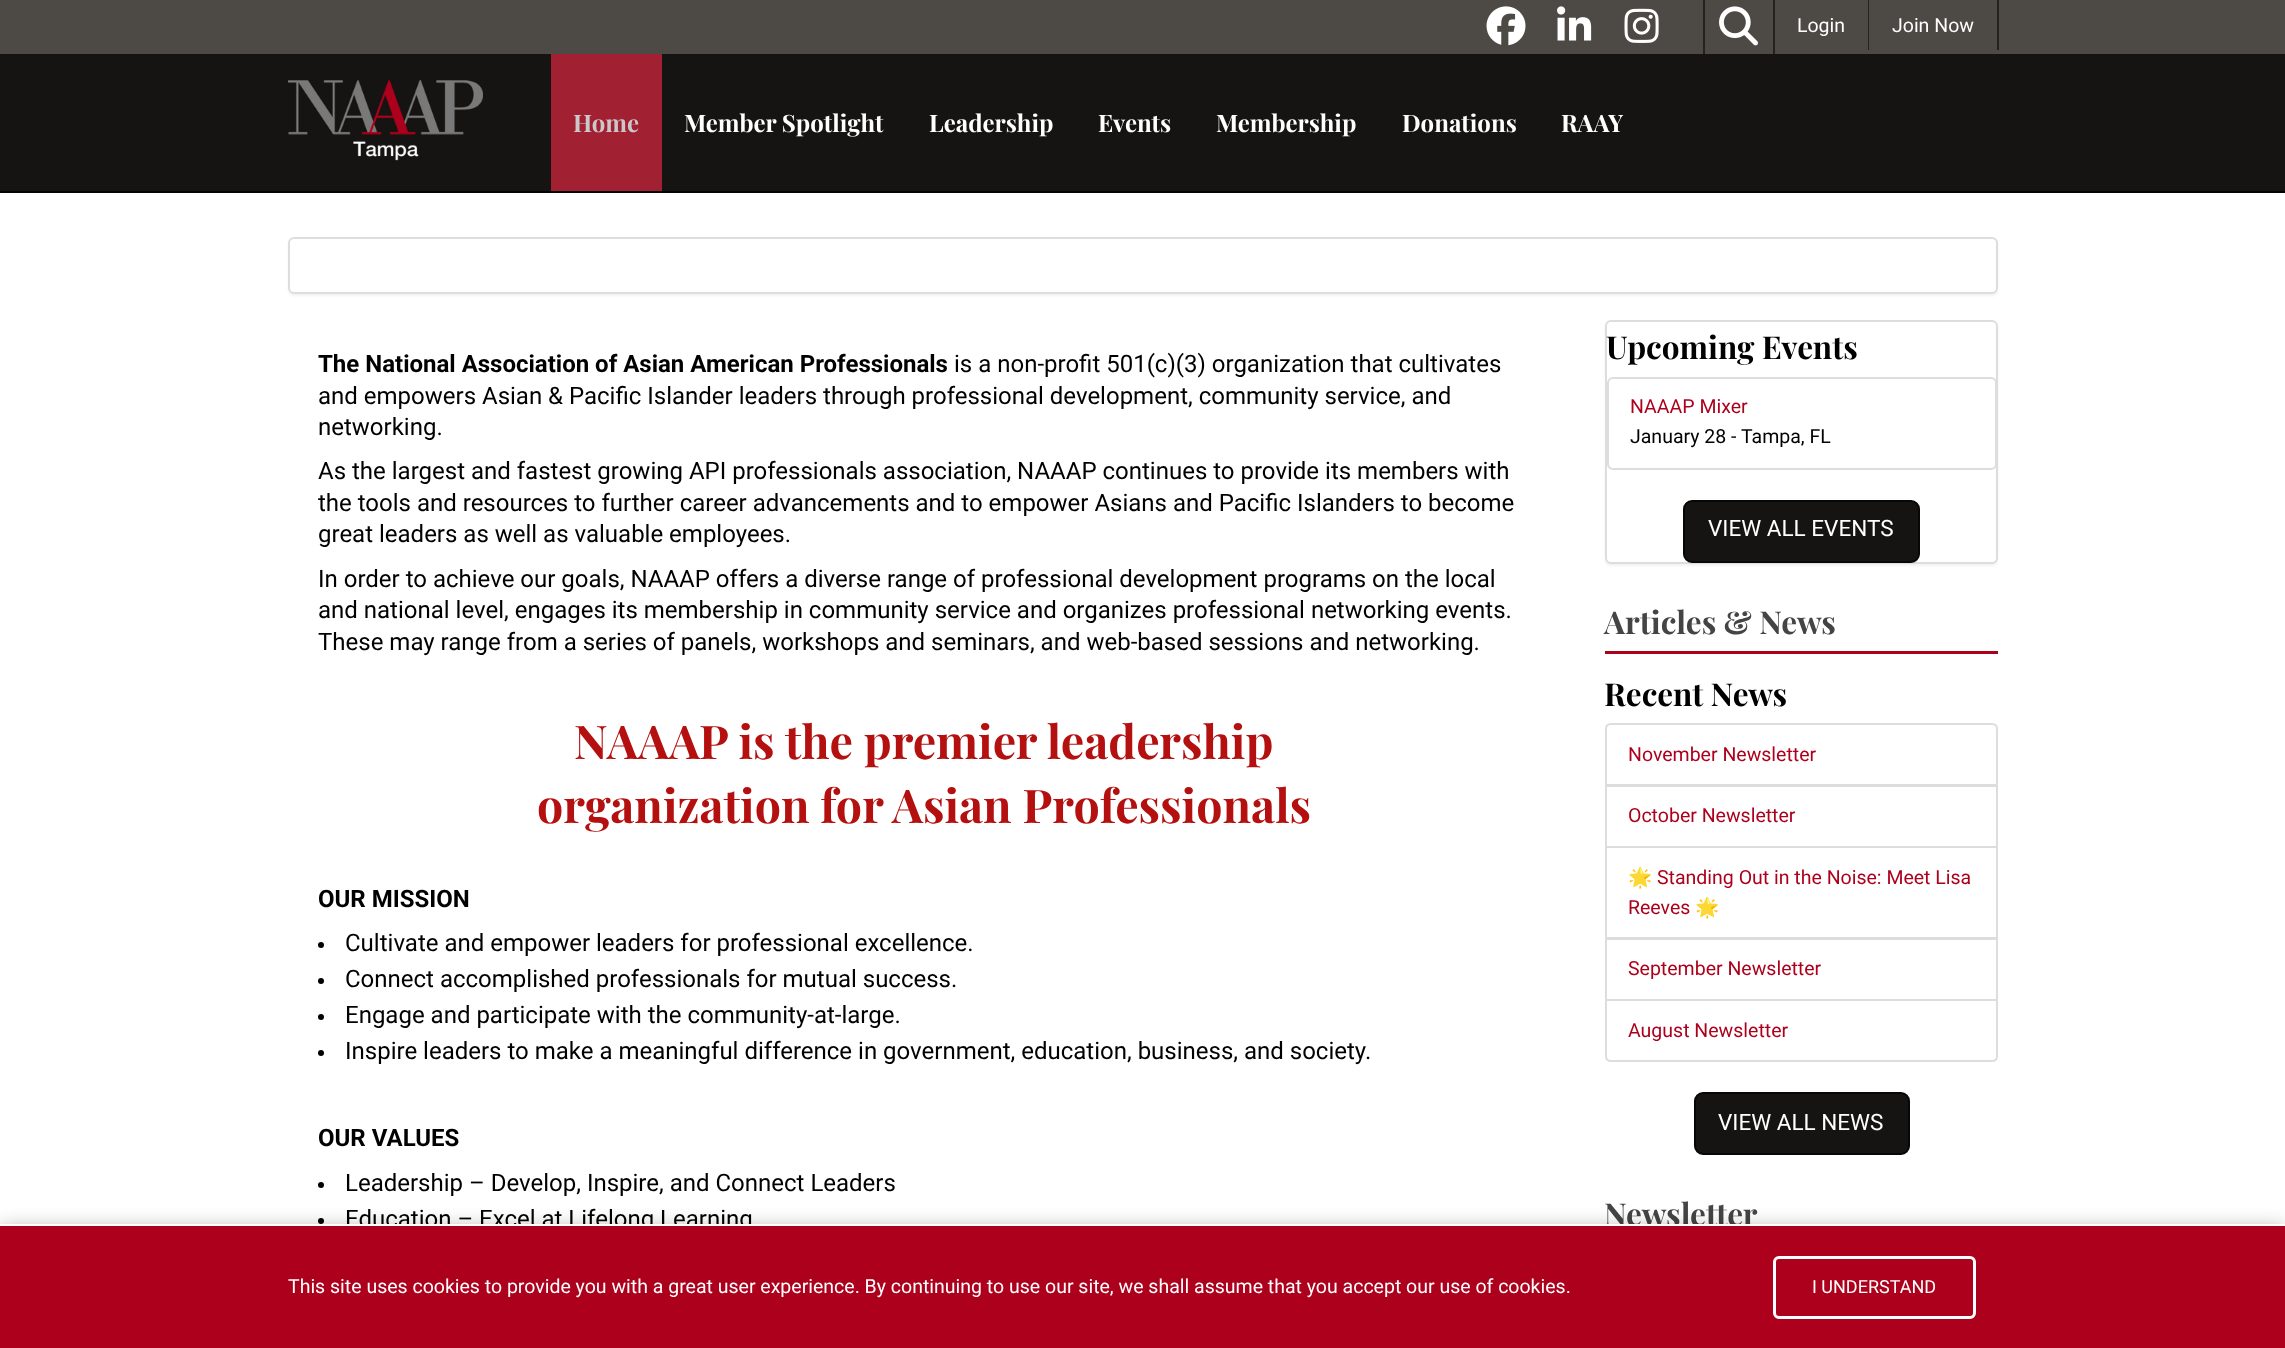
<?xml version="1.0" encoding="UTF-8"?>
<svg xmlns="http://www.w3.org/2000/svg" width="2285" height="1348">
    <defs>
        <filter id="blur1" x="-50%" y="-200%" width="200%" height="500%"><feGaussianBlur stdDeviation="1"/></filter>
        <filter id="blur2" x="-50%" y="-200%" width="200%" height="500%"><feGaussianBlur stdDeviation="11"/></filter>
    </defs>
    <rect width="100%" height="100%" fill="#FFFFFF"/>
    <rect x="0" y="0" width="2285" height="54" fill="#4D4944"/>
    <image x="1486" y="6" width="40" height="40" href="img_01.png"/>
    <image x="1557" y="6" width="35" height="35" href="img_02.png"/>
    <image x="1624" y="8" width="35" height="35" href="img_03.png"/>
    <rect x="1703" y="0" width="2" height="54" fill="#242220"/>
    <image x="1719" y="6" width="39" height="40" href="img_04.png"/>
    <rect x="1773" y="0" width="2" height="54" fill="#242220"/>
    <rect x="1868" y="0" width="1" height="50" fill="#242220"/>
    <text x="1797" y="32" font-family="Roboto" font-size="19.5" fill="#FFFFFF">Login</text>
    <rect x="1997" y="0" width="2" height="50" fill="#242220"/>
    <text x="1892" y="32" font-family="Roboto" font-size="19.5" fill="#FFFFFF">Join Now</text>
    <rect x="0" y="54" width="2285" height="137" fill="#161412"/>
    <rect x="0" y="191" width="2285" height="2" fill="#040303"/>
    <image x="288" y="80" width="195" height="81" href="img_05.png"/>
    <rect x="551" y="54" width="111" height="137" fill="#A12031"/>
    <text x="573" y="132" font-family="Playfair Display" font-size="24" font-weight="700" fill="#CCC8C9">Home</text>
    <text x="684" y="132" font-family="Playfair Display" font-size="24" font-weight="700" fill="#FFFFFF">Member Spotlight</text>
    <text x="929" y="132" font-family="Playfair Display" font-size="24" font-weight="700" fill="#FFFFFF">Leadership</text>
    <text x="1098" y="132" font-family="Playfair Display" font-size="24" font-weight="700" fill="#FFFFFF">Events</text>
    <text x="1216" y="132" font-family="Playfair Display" font-size="24" font-weight="700" fill="#FFFFFF">Membership</text>
    <text x="1402" y="132" font-family="Playfair Display" font-size="24" font-weight="700" fill="#FFFFFF">Donations</text>
    <text x="1561" y="132" font-family="Playfair Display" font-size="24" font-weight="700" fill="#FFFFFF">RAAY</text>
    <rect x="288" y="239" width="1710" height="57" rx="6" fill="#000000" fill-opacity="0.05" filter="url(#blur1)"/>
    <rect x="289" y="238" width="1708" height="55" rx="5" fill="#FFFFFF" stroke="#DDDDDD" stroke-width="2"/>
    <text x="318" y="372" font-family="Roboto" font-size="24" font-weight="700" fill="#000000">The National Association of Asian American Professionals</text>
    <text x="954" y="372" font-family="Roboto" font-size="24" fill="#000000">is a non-profit 501(c)(3) organization that cultivates</text>
    <text font-family="Roboto" font-size="24" fill="#000000">
        <tspan x="318" y="404">and empowers Asian &amp; Pacific Islander leaders through professional development, community service, and</tspan>
        <tspan x="318" y="435">networking.</tspan>
        <tspan x="318" y="479">As the largest and fastest growing API professionals association, NAAAP continues to provide its members with</tspan>
        <tspan x="318" y="511">the tools and resources to further career advancements and to empower Asians and Pacific Islanders to become</tspan>
        <tspan x="318" y="542">great leaders as well as valuable employees.</tspan>
        <tspan x="318" y="587">In order to achieve our goals, NAAAP offers a diverse range of professional development programs on the local</tspan>
        <tspan x="318" y="618">and national level, engages its membership in community service and organizes professional networking events.</tspan>
        <tspan x="318" y="650">These may range from a series of panels, workshops and seminars, and web-based sessions and networking.</tspan>
    </text>
    <text x="574" y="759" font-family="Playfair Display" font-size="46.5" font-weight="700" fill="#B51010">NAAAP is the premier leadership</text>
    <text x="537" y="823" font-family="Playfair Display" font-size="46.5" font-weight="700" fill="#B51010">organization for Asian Professionals</text>
    <text x="318" y="907" font-family="Roboto" font-size="24" font-weight="700" fill="#000000">OUR MISSION</text>
    <circle cx="321" cy="945" r="3" fill="#000000"/>
    <text x="345" y="951" font-family="Roboto" font-size="24" fill="#000000">Cultivate and empower leaders for professional excellence.</text>
    <circle cx="321" cy="981" r="3" fill="#000000"/>
    <text x="345" y="987" font-family="Roboto" font-size="24" fill="#000000">Connect accomplished professionals for mutual success.</text>
    <circle cx="321" cy="1017" r="3" fill="#000000"/>
    <text x="345" y="1023" font-family="Roboto" font-size="24" fill="#000000">Engage and participate with the community-at-large.</text>
    <circle cx="321" cy="1053" r="3" fill="#000000"/>
    <text x="345" y="1059" font-family="Roboto" font-size="24" fill="#000000">Inspire leaders to make a meaningful difference in government, education, business, and society.</text>
    <text x="318" y="1146" font-family="Roboto" font-size="24" font-weight="700" fill="#000000">OUR VALUES</text>
    <circle cx="321" cy="1185" r="3" fill="#000000"/>
    <text x="345" y="1191" font-family="Roboto" font-size="24" fill="#000000">Leadership – Develop, Inspire, and Connect Leaders</text>
    <circle cx="321" cy="1221" r="3" fill="#000000"/>
    <text x="345" y="1227" font-family="Roboto" font-size="24" fill="#000000">Education – Excel at Lifelong Learning</text>
    <rect x="1605" y="321" width="393" height="245" rx="6" fill="#000000" fill-opacity="0.05" filter="url(#blur1)"/>
    <rect x="1606" y="321" width="391" height="242" rx="5" fill="#FFFFFF" stroke="#DDDDDD" stroke-width="2"/>
    <text x="1606" y="359" font-family="Playfair Display" font-size="31.5" font-weight="700" fill="#000000">Upcoming Events</text>
    <rect x="1608" y="378" width="388" height="91" rx="5" fill="#FFFFFF" stroke="#DDDDDD" stroke-width="2"/>
    <text x="1630" y="413" font-family="Roboto" font-size="19.5" fill="#AD001C">NAAAP Mixer</text>
    <text x="1630" y="443" font-family="Roboto" font-size="19.5" fill="#000000">January 28 -</text>
    <text x="1741" y="443" font-family="Roboto" font-size="19.5" fill="#000000">Tampa, FL</text>
    <rect x="1684" y="501" width="235" height="61" rx="8" fill="#161412" stroke="#080707" stroke-width="2"/>
    <text x="1708" y="536" font-family="Roboto" font-size="22.5" fill="#FFFFFF">VIEW ALL EVENTS</text>
    <rect x="1605" y="651" width="393" height="3" fill="#AD001C"/>
    <text x="1604" y="634" font-family="Playfair Display" font-size="31.5" font-weight="700" fill="#444444">Articles &amp; News</text>
    <text x="1604" y="706" font-family="Playfair Display" font-size="31.5" font-weight="700" fill="#000000">Recent News</text>
    <path d="M 1611 724 H 1992 C 1995 724 1997 726 1997 729 V 785 H 1606 V 729 C 1606 726 1608 724 1611 724 Z" fill="none" stroke="#DDDDDD" stroke-width="2"/>
    <text x="1628" y="761" font-family="Roboto" font-size="19.5" fill="#AD001C">November Newsletter</text>
    <rect x="1606" y="786" width="391" height="61" fill="none" stroke="#DDDDDD" stroke-width="2"/>
    <text x="1628" y="822" font-family="Roboto" font-size="19.5" fill="#AD001C">October Newsletter</text>
    <rect x="1606" y="847" width="391" height="91" fill="none" stroke="#DDDDDD" stroke-width="2"/>
    <text x="1628" y="884" font-family="Noto Color Emoji" font-size="19.5" fill="#AD001C">🌟</text>
    <text x="1657" y="884" font-family="Roboto" font-size="19.5" fill="#AD001C">Standing Out in the Noise: Meet Lisa</text>
    <text x="1628" y="914" font-family="Roboto" font-size="19.5" fill="#AD001C">Reeves</text>
    <text x="1695" y="914" font-family="Noto Color Emoji" font-size="19.5" fill="#AD001C">🌟</text>
    <rect x="1606" y="939" width="391" height="61" fill="none" stroke="#DDDDDD" stroke-width="2"/>
    <text x="1628" y="975" font-family="Roboto" font-size="19.5" fill="#AD001C">September Newsletter</text>
    <path d="M 1606 1000 H 1997 V 1056 C 1997 1059 1995 1061 1992 1061 H 1611 C 1608 1061 1606 1059 1606 1056 Z" fill="#FFFFFF" stroke="#DDDDDD" stroke-width="2"/>
    <text x="1628" y="1037" font-family="Roboto" font-size="19.5" fill="#AD001C">August Newsletter</text>
    <rect x="1695" y="1093" width="214" height="61" rx="8" fill="#161412" stroke="#080707" stroke-width="2"/>
    <text x="1718" y="1130" font-family="Roboto" font-size="22.5" fill="#FFFFFF">VIEW ALL NEWS</text>
    <text x="1604" y="1226" font-family="Playfair Display" font-size="31.5" font-weight="700" fill="#444444">Newsletter</text>
    <rect x="0" y="1232" width="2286" height="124" fill="#000000" fill-opacity="0.5" filter="url(#blur2)"/>
    <rect x="0" y="1226" width="2285" height="122" fill="#AD001C"/>
    <rect x="0" y="1224" width="2285" height="2" fill="#FFFFFF"/>
    <text x="288" y="1293" font-family="Roboto" font-size="19.5" fill="#FFFFFF">This site uses cookies to provide you with a great user experience. By continuing to use our site, we shall assume that you accept our use of cookies.</text>
    <rect x="1774.5" y="1257.5" width="200" height="60" rx="4.5" fill="none" stroke="#FFFFFF" stroke-width="3"/>
    <text x="1812" y="1293" font-family="Roboto" font-size="18" fill="#FFFFFF">I UNDERSTAND</text>
</svg>
